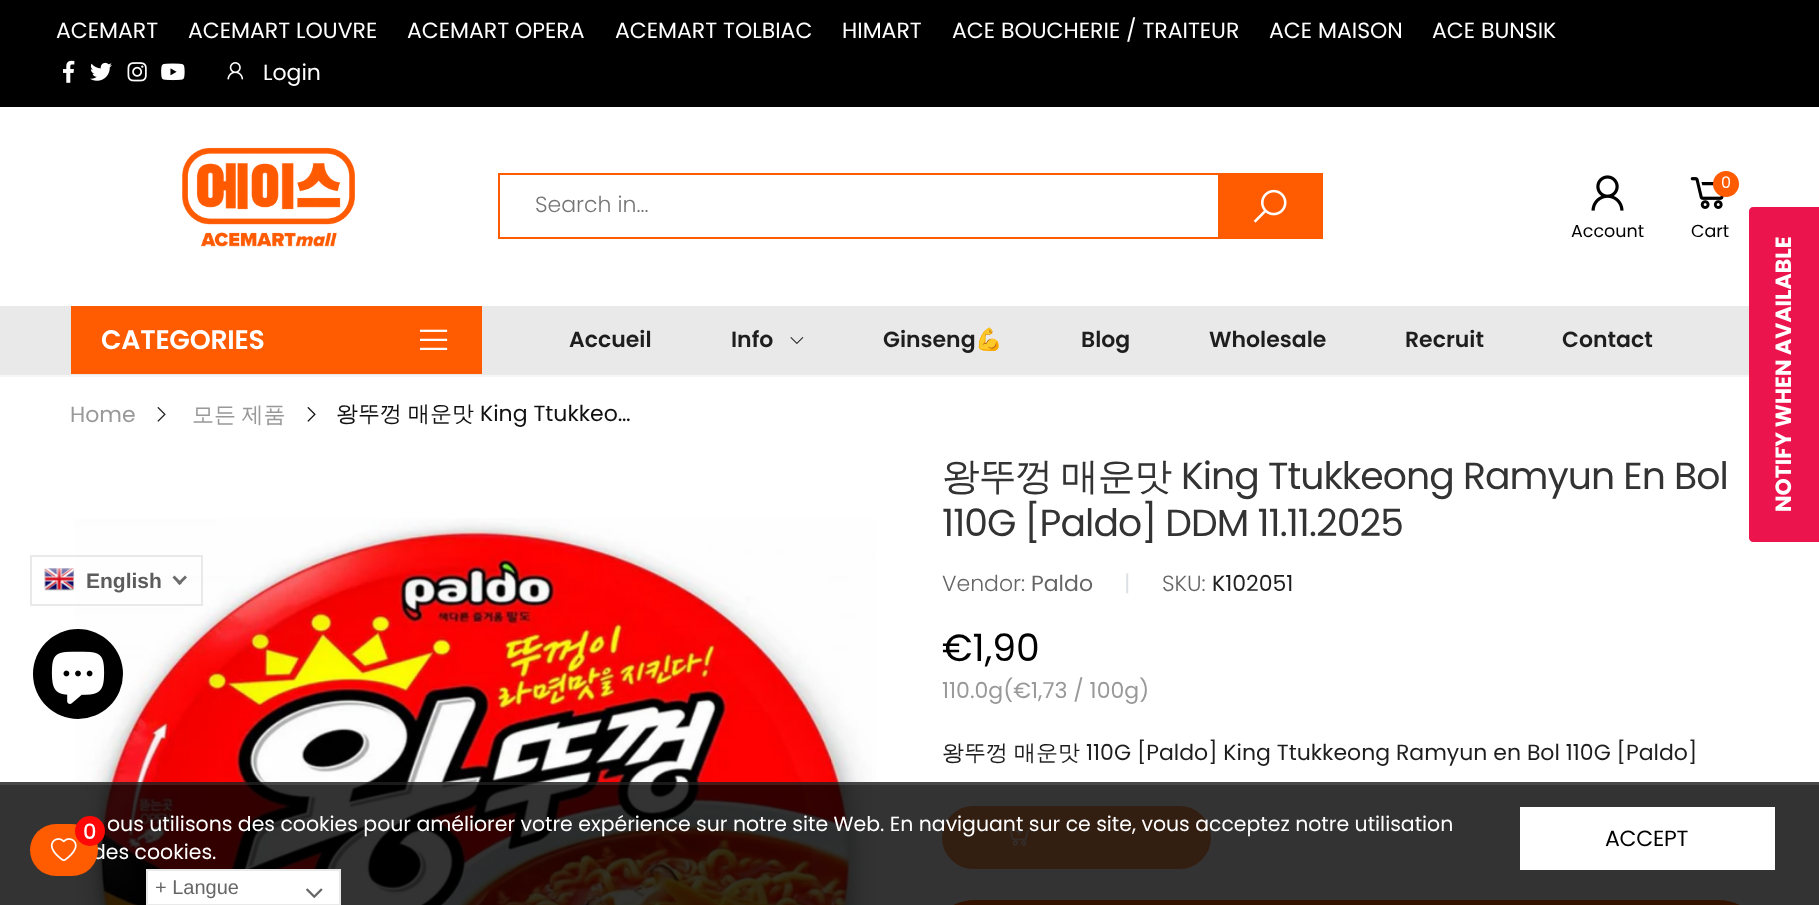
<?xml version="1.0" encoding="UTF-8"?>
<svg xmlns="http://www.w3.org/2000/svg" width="1819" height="905">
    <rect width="100%" height="100%" fill="#FFFFFF"/>
    <rect x="0" y="0" width="1819" height="107" fill="#000000"/>
    <text x="56" y="38" font-family="Poppins" font-size="22" fill="#FFFFFF">ACEMART</text>
    <text x="188" y="38" font-family="Poppins" font-size="22" fill="#FFFFFF">ACEMART LOUVRE</text>
    <text x="407" y="38" font-family="Poppins" font-size="22" fill="#FFFFFF">ACEMART OPERA</text>
    <text x="615" y="38" font-family="Poppins" font-size="22" fill="#FFFFFF">ACEMART TOLBIAC</text>
    <text x="842" y="38" font-family="Poppins" font-size="22" fill="#FFFFFF">HIMART</text>
    <text x="952" y="38" font-family="Poppins" font-size="22" fill="#FFFFFF">ACE BOUCHERIE / TRAITEUR</text>
    <text x="1269" y="38" font-family="Poppins" font-size="22" fill="#FFFFFF">ACE MAISON</text>
    <text x="1432" y="38" font-family="Poppins" font-size="22" fill="#FFFFFF">ACE BUNSIK</text>
    <image x="63" y="60" width="12" height="23" href="img_01.png"/>
    <image x="90" y="62" width="22" height="19" href="img_02.png"/>
    <image x="127" y="62" width="20" height="20" href="img_03.png"/>
    <image x="161" y="63" width="24" height="18" href="img_04.png"/>
    <image x="227" y="62" width="17" height="18" href="img_05.png"/>
    <text x="263" y="80" font-family="Poppins" font-size="22" fill="#FFFFFF">Login</text>
    <image x="182" y="147" width="173" height="100" href="img_06.png"/>
    <rect x="499" y="174" width="823" height="64" fill="none" stroke="#FF5B00" stroke-width="2"/>
    <text x="535" y="212" font-family="Poppins" font-size="22" font-weight="300" fill="#757575">Search in...</text>
    <rect x="1218" y="175" width="103" height="62" fill="#FF5B00"/>
    <image x="1253" y="189" width="34" height="34" href="img_07.png"/>
    <image x="1591" y="175" width="33" height="36" href="img_08.png"/>
    <text x="1571" y="237" font-family="Poppins" font-size="17.5" fill="#000000">Account</text>
    <image x="1690" y="177" width="34" height="32" href="img_09.png"/>
    <circle cx="1726" cy="184" r="13" fill="#FF5B00"/>
    <text x="1721" y="188" font-family="Poppins" font-size="16" fill="#FFFFFF">0</text>
    <text x="1691" y="237" font-family="Poppins" font-size="17.5" fill="#000000">Cart</text>
    <rect x="0" y="306" width="1749" height="69" fill="#E9E9E9"/>
    <rect x="71" y="306" width="411" height="68" fill="#FF5B00"/>
    <text x="101" y="349" font-family="Poppins" font-size="26.75" font-weight="600" letter-spacing="-0.25" fill="#FFFFFF">CATEGORIES</text>
    <image x="420" y="329" width="28" height="21" href="img_10.png"/>
    <text x="569" y="347" font-family="Poppins" font-size="22" font-weight="600" fill="#1E1E1E">Accueil</text>
    <text x="731" y="347" font-family="Poppins" font-size="22" font-weight="600" fill="#1E1E1E">Info</text>
    <image x="790" y="337" width="14" height="7" href="img_11.png"/>
    <text x="883" y="347" font-family="Poppins" font-size="22" font-weight="600" fill="#1E1E1E">Ginseng</text>
    <text x="975" y="347" font-family="Noto Color Emoji" font-size="22" fill="#1E1E1E">💪</text>
    <text x="1081" y="347" font-family="Poppins" font-size="22" font-weight="600" fill="#1E1E1E">Blog</text>
    <text x="1209" y="347" font-family="Poppins" font-size="22" font-weight="600" fill="#1E1E1E">Wholesale</text>
    <text x="1405" y="347" font-family="Poppins" font-size="22" font-weight="600" fill="#1E1E1E">Recruit</text>
    <text x="1562" y="347" font-family="Poppins" font-size="22" font-weight="600" fill="#1E1E1E">Contact</text>
    <rect x="0" y="375" width="1749" height="2" fill="#F5F6F8"/>
    <text x="70" y="422" font-family="Poppins" font-size="22" fill="#999999">Home</text>
    <image x="157" y="407" width="9" height="15" href="img_12.png"/>
    <text x="192" y="422" word-spacing="-1" font-family="WenQuanYi Zen Hei" font-size="22" font-weight="500" fill="#999999">모든 제품</text>
    <image x="307" y="407" width="9" height="15" href="img_13.png"/>
    <text x="336" y="421" font-family="WenQuanYi Zen Hei" font-size="22" font-weight="500" fill="#111111">왕뚜껑</text>
    <text x="408" y="421" font-family="WenQuanYi Zen Hei" font-size="22" font-weight="500" fill="#111111">매운맛</text>
    <text x="480" y="421" font-family="Poppins" font-size="22" fill="#111111">King Ttukkeo…</text>
    <image x="75" y="518" width="801" height="387" href="img_14.png"/>
    <text x="942" y="489" font-family="WenQuanYi Zen Hei" font-size="37.75" font-weight="500" letter-spacing="-0.95" fill="#333333">왕뚜껑</text>
    <text x="1061" y="489" font-family="WenQuanYi Zen Hei" font-size="37.75" font-weight="500" letter-spacing="-0.95" fill="#333333">매운맛</text>
    <text x="1181" y="489" font-family="Poppins" font-size="37.75" letter-spacing="-0.95" fill="#333333">King Ttukkeong Ramyun En Bol</text>
    <text x="942" y="536" font-family="Poppins" font-size="37.75" letter-spacing="-0.95" fill="#333333">110G [Paldo] DDM 11.11.2025</text>
    <text x="942" y="591" font-family="Poppins" font-size="22" font-weight="300" fill="#666666">Vendor:</text>
    <text x="1031" y="591" font-family="Poppins" font-size="22" fill="#666666">Paldo</text>
    <text x="1124" y="591" font-family="Poppins" font-size="22" fill="#DEE2E6">|</text>
    <text x="1162" y="591" font-family="Poppins" font-size="22" font-weight="300" fill="#666666">SKU:</text>
    <text x="1212" y="591" font-family="Poppins" font-size="22" fill="#1E1E1E">K102051</text>
    <text x="942" y="661" font-family="Poppins" font-size="37.75" fill="#000000">€1,90</text>
    <text x="942" y="698" font-family="Poppins" font-size="22" fill="#999999">110.0g(€1,73 / 100g)</text>
    <text x="942" y="760" font-family="WenQuanYi Zen Hei" font-size="22" font-weight="500" fill="#1E1E1E">왕뚜껑</text>
    <text x="1014" y="760" font-family="WenQuanYi Zen Hei" font-size="22" font-weight="500" fill="#1E1E1E">매운맛</text>
    <text x="1086" y="760" font-family="Poppins" font-size="22" fill="#1E1E1E">110G [Paldo] King Ttukkeong Ramyun en Bol 110G [Paldo]</text>
    <rect x="943" y="807" width="267" height="61" rx="30.5" fill="#FF9459" stroke="#FF9459" stroke-width="2"/>
    <image x="1006" y="827" width="23" height="19" href="img_15.png"/>
    <rect x="942" y="900" width="809" height="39" rx="34" fill="#FF5B00"/>
    <path d="M 1749 538 V 211 C 1749 209 1751 207 1753 207 H 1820 V 542 H 1753 C 1751 542 1749 540 1749 538 Z" fill="#EB144C"/>
    <text x="1791" y="512" transform="rotate(-90 1791 512)" font-family="Poppins" font-size="22" font-weight="700" fill="#FFFFFF">NOTIFY WHEN AVAILABLE</text>
    <rect x="31" y="556" width="171" height="49" fill="none" stroke="#E9E9E9" stroke-width="2"/>
    <image x="44" y="568" width="31" height="23" href="img_16.png"/>
    <text x="86" y="588" font-family="Liberation Sans" font-size="21" font-weight="700" fill="#5C5C5C">English</text>
    <path d="M 185 575.5 L 187 577.5 L 179.5 585 L 177.5 583 Z" fill="#6C6C6C"/>
    <path d="M 174.5 575.5 L 182 583 L 179.5 585 L 172.5 577.5 Z" fill="#6C6C6C"/>
    <circle cx="78" cy="674" r="45" fill="#000000"/>
    <image x="51" y="651" width="54" height="53" href="img_17.png"/>
    <rect x="0" y="782" width="1819" height="123" fill="#000000" fill-opacity="0.8"/>
    <text x="92" y="859" font-family="Poppins" font-size="20.45" fill="#FFFFFF">des cookies.</text>
    <rect x="30" y="824" width="68" height="52" rx="26" fill="#FF5B00"/>
    <image x="50" y="838" width="27" height="23" href="img_18.png"/>
    <circle cx="90" cy="831" r="15" fill="#FF0808"/>
    <text x="83" y="839" font-family="Poppins" font-size="21" font-weight="500" fill="#FFFFFF">0</text>
    <rect x="0" y="782" width="1819" height="3" fill="#FFFFFF" fill-opacity="0.1"/>
    <text x="107" y="831" font-family="Poppins" font-size="20.45" fill="#FFFFFF">ous utilisons des cookies pour améliorer votre expérience sur notre site Web. En naviguant sur ce site, vous acceptez notre utilisation</text>
    <rect x="1520" y="807" width="255" height="63" fill="#FFFFFF"/>
    <text x="1605" y="846" font-family="Poppins" font-size="22" letter-spacing="-0.25" fill="#000000">ACCEPT</text>
    <rect x="147" y="870" width="193" height="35" fill="#FFFFFF" stroke="#E9E9E9" stroke-width="2"/>
    <text x="155" y="894" font-family="Liberation Sans" font-size="20" fill="#666666">+ Langue</text>
    <image x="306" y="888" width="17" height="10" href="img_19.png"/>
</svg>
